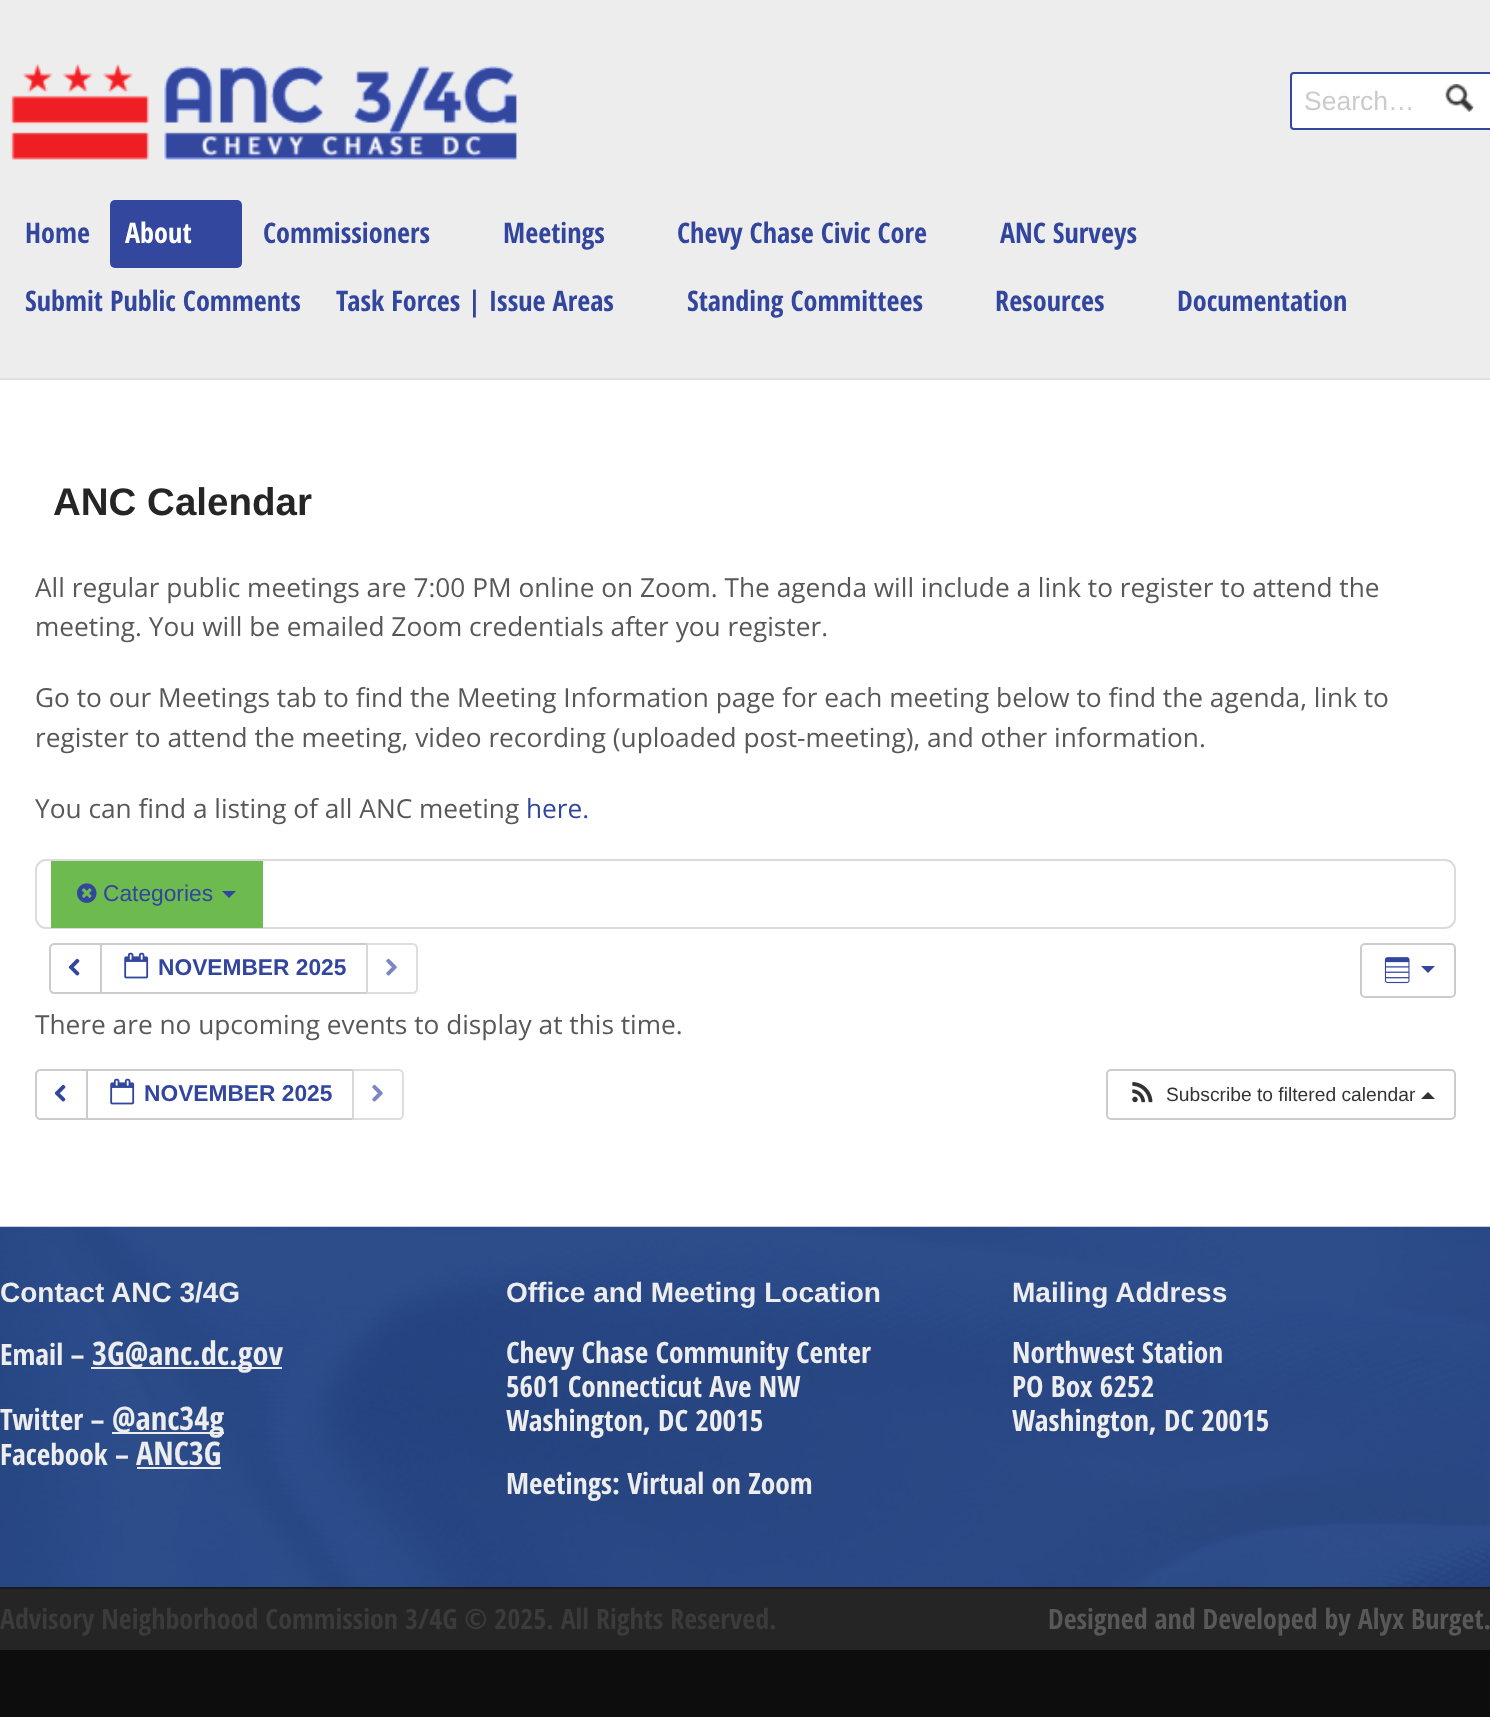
<?xml version="1.0" encoding="UTF-8"?>
<svg xmlns="http://www.w3.org/2000/svg" width="1490" height="1717">
    <rect width="100%" height="100%" fill="#0D0D0D"/>
    <rect x="0" y="0" width="1490" height="378" fill="#EDEDED"/>
    <rect x="0" y="378" width="1490" height="2" fill="#E1E1E1"/>
    <image x="10" y="64" width="507" height="96" href="img_01.png"/>
    <rect x="1291" y="73" width="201" height="56" rx="3" fill="#FFFFFF" stroke="#33479E" stroke-width="2"/>
    <text x="1304" y="110" font-family="Liberation Sans" font-size="26.5" fill="#CBCBCB">Search…</text>
    <image x="1445" y="84" width="29" height="28" href="img_02.png"/>
    <text x="25" y="243" font-family="Open Sans Condensed" font-size="28.25" font-weight="700" fill="#33469E">Home</text>
    <rect x="110" y="200" width="132" height="68" rx="5" fill="#33479E"/>
    <text x="125" y="243" font-family="Open Sans Condensed" font-size="28.25" font-weight="700" fill="#FFFFFF">About</text>
    <text x="263" y="243" font-family="Open Sans Condensed" font-size="28.25" font-weight="700" fill="#33469E">Commissioners</text>
    <text x="503" y="243" font-family="Open Sans Condensed" font-size="28.25" font-weight="700" fill="#33469E">Meetings</text>
    <text x="677" y="243" font-family="Open Sans Condensed" font-size="28.25" font-weight="700" fill="#33469E">Chevy Chase Civic Core</text>
    <text x="1000" y="243" font-family="Open Sans Condensed" font-size="28.25" font-weight="700" fill="#33469E">ANC Surveys</text>
    <text x="25" y="311" font-family="Open Sans Condensed" font-size="28.25" font-weight="700" fill="#33469E">Submit Public Comments</text>
    <text x="336" y="311" font-family="Open Sans Condensed" font-size="28.25" font-weight="700" fill="#33469E">Task Forces | Issue Areas</text>
    <text x="687" y="311" font-family="Open Sans Condensed" font-size="28.25" font-weight="700" fill="#33469E">Standing Committees</text>
    <text x="995" y="311" font-family="Open Sans Condensed" font-size="28.25" font-weight="700" fill="#33469E">Resources</text>
    <text x="1177" y="311" font-family="Open Sans Condensed" font-size="28.25" font-weight="700" fill="#33469E">Documentation</text>
    <rect x="0" y="380" width="1490" height="847" fill="#FFFFFF"/>
    <text x="53" y="515" font-family="Liberation Sans" font-size="38.5" font-weight="700" fill="#252525">ANC Calendar</text>
    <text font-family="Open Sans" font-size="26.25" fill="#585858">
        <tspan x="35" y="597">All regular public meetings are 7:00 PM online on Zoom. The agenda will include a link to register to attend the</tspan>
        <tspan x="35" y="636">meeting. You will be emailed Zoom credentials after you register.</tspan>
    </text>
    <text font-family="Open Sans" font-size="26.25" fill="#585858">
        <tspan x="35" y="707">Go to our Meetings tab to find the Meeting Information page for each meeting below to find the agenda, link to</tspan>
        <tspan x="35" y="747">register to attend the meeting, video recording (uploaded post-meeting), and other information.</tspan>
    </text>
    <text x="35" y="818" font-family="Open Sans" font-size="26.25" fill="#585858">You can find a listing of all ANC meeting</text>
    <text x="526" y="818" font-family="Open Sans" font-size="26.25" fill="#33469E">here.</text>
    <rect x="36" y="860" width="1419" height="68" rx="10" fill="none" stroke="#DBDBDB" stroke-width="2"/>
    <rect x="51" y="861" width="212" height="67" fill="#6DBB4F"/>
    <image x="77" y="883" width="20" height="20" href="img_03.png"/>
    <text x="103" y="901" font-family="Liberation Sans" font-size="22.75" fill="#33469E">Categories</text>
    <path d="M 222 891 H 236 L 229 898 Z" fill="#33469E"/>
    <path d="M 54 944 H 101 V 993 H 54 C 52 993 50 991 50 989 V 948 C 50 946 52 944 54 944 Z" fill="none" stroke="#CCCCCC" stroke-width="2"/>
    <image x="68" y="958" width="12" height="18" href="img_04.png"/>
    <rect x="101" y="944" width="266" height="49" fill="none" stroke="#CCCCCC" stroke-width="2"/>
    <image x="124" y="952" width="25" height="27" href="img_05.png"/>
    <text x="158" y="975" font-family="Liberation Sans" font-size="22.75" font-weight="700" fill="#33469E">NOVEMBER 2025</text>
    <path d="M 366 943 H 413 C 416 943 418 945 418 948 V 989 C 418 992 416 994 413 994 H 366 Z" fill="#FFFFFF" fill-opacity="0.65"/>
    <path d="M 367 944 H 413 C 415 944 417 946 417 948 V 989 C 417 991 415 993 413 993 H 367 Z" fill="none" stroke="#CCCCCC" stroke-opacity="0.65" stroke-width="2"/>
    <image x="386" y="958" width="11" height="18" href="img_06.png"/>
    <rect x="1361" y="944" width="94" height="53" rx="4" fill="none" stroke="#CCCCCC" stroke-width="2"/>
    <image x="1384" y="957" width="26" height="27" href="img_07.png"/>
    <path d="M 1421 966 H 1435 L 1428 973 Z" fill="#33469E"/>
    <text x="35" y="1034" font-family="Open Sans" font-size="26.25" fill="#585858">There are no upcoming events to display at this time.</text>
    <path d="M 40 1070 H 87 V 1119 H 40 C 38 1119 36 1117 36 1115 V 1074 C 36 1072 38 1070 40 1070 Z" fill="none" stroke="#CCCCCC" stroke-width="2"/>
    <image x="54" y="1084" width="12" height="18" href="img_04.png"/>
    <rect x="87" y="1070" width="266" height="49" fill="none" stroke="#CCCCCC" stroke-width="2"/>
    <image x="110" y="1078" width="25" height="27" href="img_05.png"/>
    <text x="144" y="1101" font-family="Liberation Sans" font-size="22.75" font-weight="700" fill="#33469E">NOVEMBER 2025</text>
    <path d="M 352 1069 H 399 C 402 1069 404 1071 404 1074 V 1115 C 404 1118 402 1120 399 1120 H 352 Z" fill="#FFFFFF" fill-opacity="0.65"/>
    <path d="M 353 1070 H 399 C 401 1070 403 1072 403 1074 V 1115 C 403 1117 401 1119 399 1119 H 353 Z" fill="none" stroke="#CCCCCC" stroke-opacity="0.65" stroke-width="2"/>
    <image x="372" y="1084" width="11" height="18" href="img_06.png"/>
    <rect x="1107" y="1070" width="348" height="49" rx="4" fill="none" stroke="#CCCCCC" stroke-width="2"/>
    <image x="1132" y="1082" width="21" height="21" href="img_08.png"/>
    <text x="1166" y="1101" font-family="Liberation Sans" font-size="19.25" fill="#333333">Subscribe to filtered calendar</text>
    <path d="M 1435 1099 H 1421 L 1428 1092 Z" fill="#333333"/>
    <image x="0" y="1226" width="1490" height="361" href="img_09.png"/>
    <text x="0" y="1302" font-family="Liberation Sans" font-size="28" font-weight="700" fill="#EDEDED">Contact ANC 3/4G</text>
    <text x="0" y="1365" font-family="Open Sans Condensed" font-size="29.4" font-weight="700" fill="#EDEDED">Email –</text>
    <rect x="91" y="1367" width="191" height="2" fill="#EDEDED"/>
    <text x="92" y="1365" font-family="Open Sans Condensed" font-size="32.5" font-weight="700" fill="#EDEDED">3G@anc.dc.gov</text>
    <text x="0" y="1430" font-family="Open Sans Condensed" font-size="29.4" font-weight="700" fill="#EDEDED">Twitter –</text>
    <rect x="112" y="1432" width="112" height="2" fill="#EDEDED"/>
    <text x="112" y="1430" font-family="Open Sans Condensed" font-size="32.5" font-weight="700" fill="#EDEDED">@anc34g</text>
    <text x="0" y="1465" font-family="Open Sans Condensed" font-size="29.4" font-weight="700" fill="#EDEDED">Facebook –</text>
    <text x="136" y="1465" font-family="Open Sans Condensed" font-size="32.5" font-weight="700" fill="#EDEDED">ANC3G</text>
    <rect x="137" y="1467" width="84" height="2" fill="#EDEDED"/>
    <text x="506" y="1302" font-family="Liberation Sans" font-size="28" font-weight="700" fill="#EDEDED">Office and Meeting Location</text>
    <text font-family="Open Sans Condensed" font-size="29.4" font-weight="700" fill="#EDEDED">
        <tspan x="506" y="1363">Chevy Chase Community Center</tspan>
        <tspan x="506" y="1397">5601 Connecticut Ave NW</tspan>
        <tspan x="506" y="1431">Washington, DC 20015</tspan>
    </text>
    <text x="506" y="1494" font-family="Open Sans Condensed" font-size="29.4" font-weight="700" fill="#EDEDED">Meetings: Virtual on Zoom</text>
    <text x="1012" y="1302" font-family="Liberation Sans" font-size="28" font-weight="700" fill="#EDEDED">Mailing Address</text>
    <text font-family="Open Sans Condensed" font-size="29.4" font-weight="700" fill="#EDEDED">
        <tspan x="1012" y="1363">Northwest Station</tspan>
        <tspan x="1012" y="1397">PO Box 6252</tspan>
        <tspan x="1012" y="1431">Washington, DC 20015</tspan>
    </text>
    <rect x="0" y="1589" width="1490" height="61" fill="#252525"/>
    <rect x="0" y="1587" width="1490" height="2" fill="#1A1A1A"/>
    <text x="0" y="1629" font-family="Open Sans Condensed" font-size="28" font-weight="700" fill="#3B3B3B">Advisory Neighborhood Commission 3/4G © 2025. All Rights Reserved.</text>
    <text x="1048" y="1629" font-family="Open Sans Condensed" font-size="28" font-weight="700" fill="#585858">Designed and Developed by Alyx Burget.</text>
</svg>
